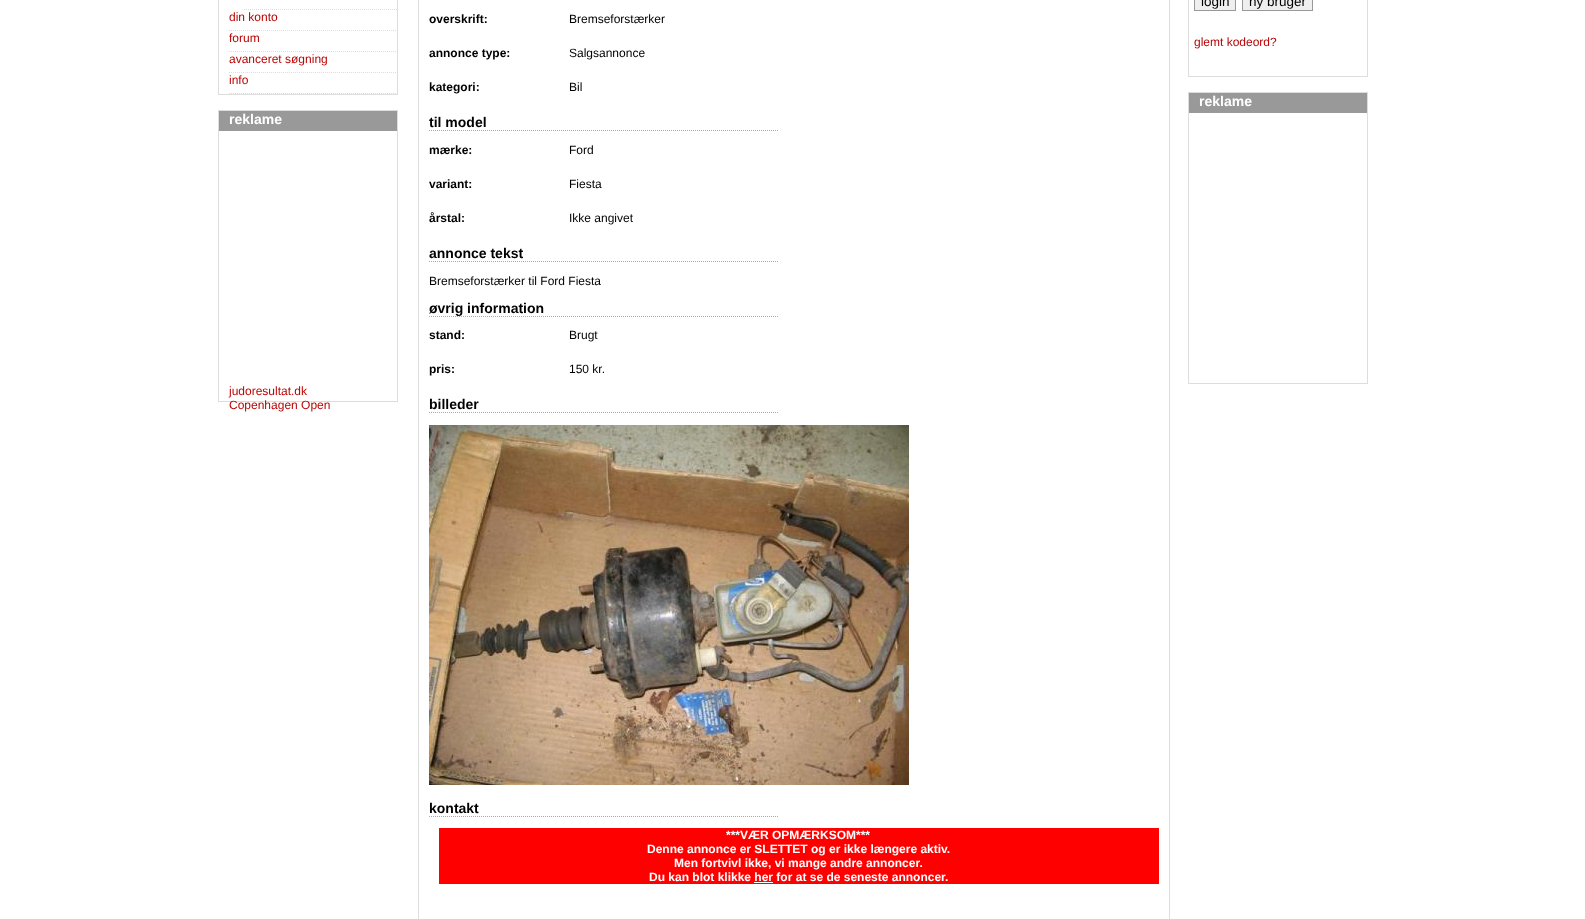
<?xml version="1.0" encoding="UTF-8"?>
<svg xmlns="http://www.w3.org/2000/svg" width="1585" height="919">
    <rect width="100%" height="100%" fill="#FFFFFF"/>
    <rect x="218.5" y="-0.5" width="179" height="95" fill="none" stroke="#DDDDDD"/>
    <path d="M 244 9.5 H 397" fill="none" stroke="#DDDDDD" stroke-dasharray="1 1"/>
    <path d="M 229 30.5 H 397" fill="none" stroke="#DDDDDD" stroke-dasharray="1 1"/>
    <text x="229" y="21" font-family="Liberation Sans" font-size="12" fill="#BB0404">din konto</text>
    <path d="M 229 51.5 H 397" fill="none" stroke="#DDDDDD" stroke-dasharray="1 1"/>
    <text x="229" y="42" font-family="Liberation Sans" font-size="12" fill="#BB0404">forum</text>
    <path d="M 229 72.5 H 397" fill="none" stroke="#DDDDDD" stroke-dasharray="1 1"/>
    <text x="229" y="63" font-family="Liberation Sans" font-size="12" fill="#BB0404">avanceret søgning</text>
    <path d="M 229 93.5 H 397" fill="none" stroke="#DDDDDD" stroke-dasharray="1 1"/>
    <text x="229" y="84" font-family="Liberation Sans" font-size="12" fill="#BB0404">info</text>
    <rect x="218.5" y="110.5" width="179" height="291" fill="none" stroke="#DDDDDD"/>
    <rect x="219" y="111" width="178" height="20" fill="#999999"/>
    <text x="229" y="124" font-family="Liberation Sans" font-size="14" font-weight="700" fill="#FFFFFF">reklame</text>
    <text font-family="Liberation Sans" font-size="12" fill="#BB0404">
        <tspan x="229" y="395">judoresultat.dk</tspan>
        <tspan x="229" y="409">Copenhagen Open</tspan>
    </text>
    <rect x="418.5" y="-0.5" width="751" height="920" fill="none" stroke="#DDDDDD"/>
    <text x="429" y="23" font-family="Liberation Sans" font-size="12" font-weight="700" fill="#000000">overskrift:</text>
    <text x="569" y="23" font-family="Liberation Sans" font-size="12" fill="#000000">Bremseforstærker</text>
    <text x="429" y="57" font-family="Liberation Sans" font-size="12" font-weight="700" fill="#000000">annonce type:</text>
    <text x="569" y="57" font-family="Liberation Sans" font-size="12" fill="#000000">Salgsannonce</text>
    <text x="429" y="91" font-family="Liberation Sans" font-size="12" font-weight="700" fill="#000000">kategori:</text>
    <text x="569" y="91" font-family="Liberation Sans" font-size="12" fill="#000000">Bil</text>
    <path d="M 429 130.5 H 779" fill="none" stroke="#AAAAAA" stroke-dasharray="1 1"/>
    <text x="429" y="127" font-family="Liberation Sans" font-size="14" font-weight="700" fill="#000000">til model</text>
    <text x="429" y="154" font-family="Liberation Sans" font-size="12" font-weight="700" fill="#000000">mærke:</text>
    <text x="569" y="154" font-family="Liberation Sans" font-size="12" fill="#000000">Ford</text>
    <text x="429" y="188" font-family="Liberation Sans" font-size="12" font-weight="700" fill="#000000">variant:</text>
    <text x="569" y="188" font-family="Liberation Sans" font-size="12" fill="#000000">Fiesta</text>
    <text x="429" y="222" font-family="Liberation Sans" font-size="12" font-weight="700" fill="#000000">årstal:</text>
    <text x="569" y="222" font-family="Liberation Sans" font-size="12" fill="#000000">Ikke angivet</text>
    <path d="M 429 261.5 H 779" fill="none" stroke="#AAAAAA" stroke-dasharray="1 1"/>
    <text x="429" y="258" font-family="Liberation Sans" font-size="14" font-weight="700" fill="#000000">annonce tekst</text>
    <text x="429" y="285" font-family="Liberation Sans" font-size="12" fill="#000000">Bremseforstærker til Ford Fiesta</text>
    <path d="M 429 316.5 H 779" fill="none" stroke="#AAAAAA" stroke-dasharray="1 1"/>
    <text x="429" y="313" font-family="Liberation Sans" font-size="14" font-weight="700" fill="#000000">øvrig information</text>
    <text x="429" y="339" font-family="Liberation Sans" font-size="12" font-weight="700" fill="#000000">stand:</text>
    <text x="569" y="339" font-family="Liberation Sans" font-size="12" fill="#000000">Brugt</text>
    <text x="429" y="373" font-family="Liberation Sans" font-size="12" font-weight="700" fill="#000000">pris:</text>
    <text x="569" y="373" font-family="Liberation Sans" font-size="12" fill="#000000">150 kr.</text>
    <path d="M 429 412.5 H 779" fill="none" stroke="#AAAAAA" stroke-dasharray="1 1"/>
    <text x="429" y="409" font-family="Liberation Sans" font-size="14" font-weight="700" fill="#000000">billeder</text>
    <image x="429" y="425" width="480" height="360" href="img_01.png"/>
    <path d="M 429 816.5 H 779" fill="none" stroke="#AAAAAA" stroke-dasharray="1 1"/>
    <text x="429" y="813" font-family="Liberation Sans" font-size="14" font-weight="700" fill="#000000">kontakt</text>
    <rect x="439" y="828" width="720" height="56" fill="#FF0000"/>
    <text x="726" y="839" font-family="Liberation Sans" font-size="12" font-weight="700" fill="#FFFFFF">***VÆR OPMÆRKSOM***</text>
    <text x="647" y="853" font-family="Liberation Sans" font-size="12" font-weight="700" fill="#FFFFFF">Denne annonce er SLETTET og er ikke længere aktiv.</text>
    <text x="674" y="867" font-family="Liberation Sans" font-size="12" font-weight="700" fill="#FFFFFF">Men fortvivl ikke, vi mange andre annoncer.</text>
    <text x="649" y="881" font-family="Liberation Sans" font-size="12" font-weight="700" fill="#FFFFFF">Du kan blot klikke her for at se de seneste annoncer.</text>
    <rect x="754" y="882" width="19" height="1" fill="#FFFFFF"/>
    <rect x="1188.5" y="-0.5" width="179" height="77" fill="none" stroke="#DDDDDD"/>
    <rect x="1194.5" y="-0.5" width="41" height="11" fill="#EFEFEF" stroke="#999999"/>
    <text x="1201" y="6" font-family="Liberation Sans" font-size="13.5" fill="#000000">login</text>
    <rect x="1242.5" y="-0.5" width="70" height="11" fill="#EFEFEF" stroke="#999999"/>
    <text x="1249" y="6" font-family="Liberation Sans" font-size="13.5" fill="#000000">ny bruger</text>
    <text x="1194" y="46" font-family="Liberation Sans" font-size="12" fill="#BB0404">glemt kodeord?</text>
    <rect x="1188.5" y="92.5" width="179" height="291" fill="none" stroke="#DDDDDD"/>
    <rect x="1189" y="93" width="178" height="20" fill="#999999"/>
    <text x="1199" y="106" font-family="Liberation Sans" font-size="14" font-weight="700" fill="#FFFFFF">reklame</text>
</svg>
